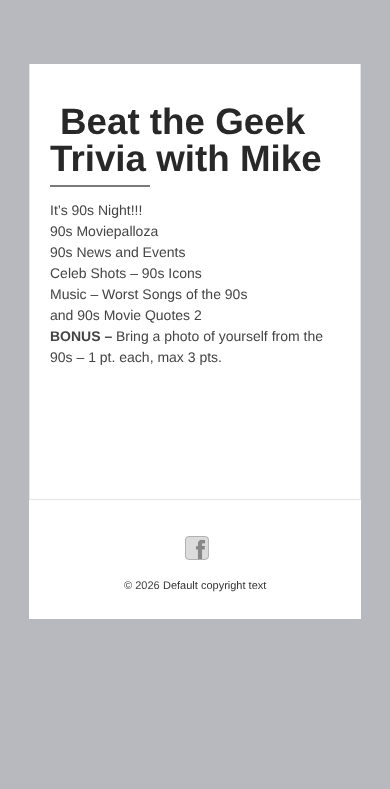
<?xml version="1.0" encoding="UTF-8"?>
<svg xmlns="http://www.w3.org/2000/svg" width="390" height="789">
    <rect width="100%" height="100%" fill="#B7B9BF"/>
    <rect x="30" y="64" width="330" height="435" fill="#FFFFFF"/>
    <rect x="360" y="64" width="1" height="436" fill="#E5E5E5"/>
    <rect x="29" y="499" width="332" height="1" fill="#E5E5E5"/>
    <rect x="29" y="64" width="1" height="436" fill="#E5E5E5"/>
    <text x="60" y="134" font-family="Liberation Sans" font-size="36.75" font-weight="700" fill="#282828">Beat the Geek</text>
    <text x="50" y="171" font-family="Liberation Sans" font-size="36.75" font-weight="700" fill="#282828">Trivia with Mike</text>
    <rect x="50" y="185" width="100" height="2" fill="#7C7B7B"/>
    <text font-family="Liberation Sans" font-size="14" fill="#444444">
        <tspan x="50" y="215">It’s 90s Night!!!</tspan>
        <tspan x="50" y="236">90s Moviepalloza</tspan>
        <tspan x="50" y="257">90s News and Events</tspan>
        <tspan x="50" y="278">Celeb Shots – 90s Icons</tspan>
        <tspan x="50" y="299">Music – Worst Songs of the 90s</tspan>
        <tspan x="50" y="320">and 90s Movie Quotes 2</tspan>
    </text>
    <text x="50" y="341" font-family="Liberation Sans" font-size="14" font-weight="700" fill="#444444">BONUS –</text>
    <text x="116" y="341" font-family="Liberation Sans" font-size="14" fill="#444444">Bring a photo of yourself from the</text>
    <text x="50" y="362" font-family="Liberation Sans" font-size="14" fill="#444444">90s – 1 pt. each, max 3 pts.</text>
    <rect x="29" y="500" width="332" height="119" fill="#FFFFFF"/>
    <image x="185" y="536" width="24" height="24" href="img_01.png"/>
    <text x="124" y="589" font-family="Liberation Sans" font-size="11" fill="#444444">© 2026</text>
    <text x="163" y="589" font-family="Liberation Sans" font-size="11" fill="#333333">Default copyright text</text>
</svg>
